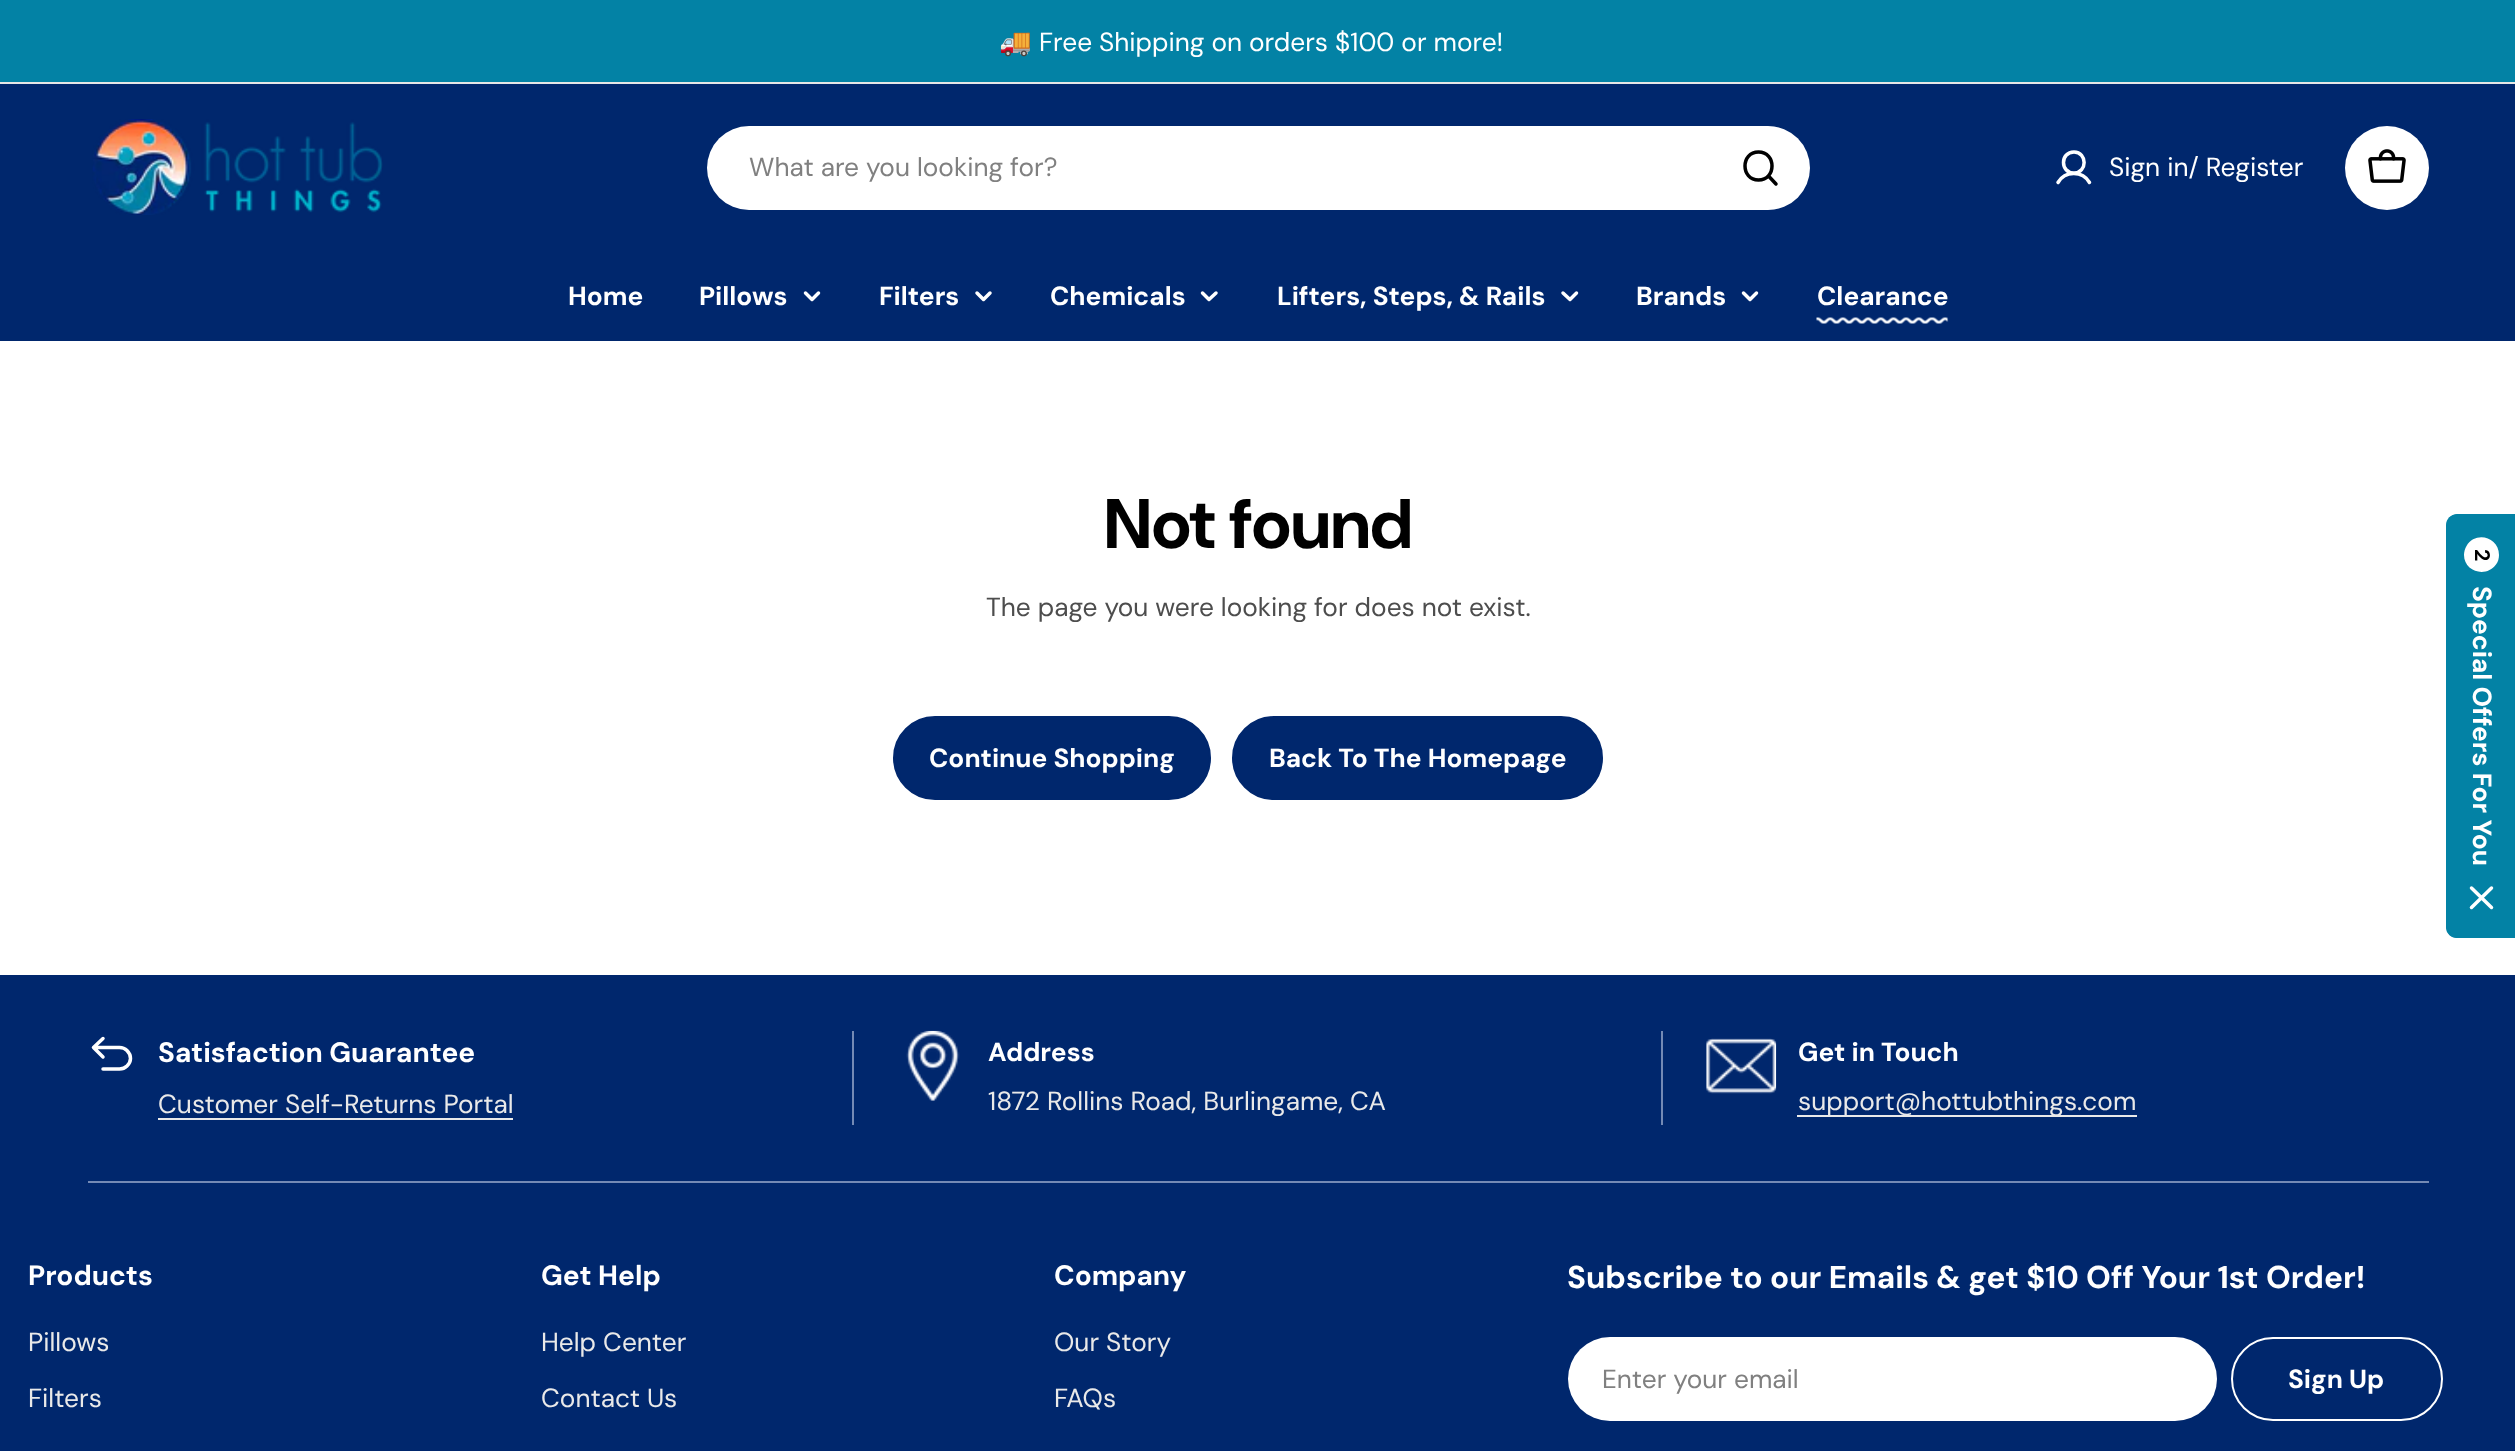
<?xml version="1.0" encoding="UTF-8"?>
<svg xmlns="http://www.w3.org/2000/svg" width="2515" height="1451">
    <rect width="100%" height="100%" fill="#FFFFFF"/>
    <rect x="0" y="0" width="2515" height="82" fill="#0382A5"/>
    <rect x="0" y="82" width="2515" height="2" fill="#E6E6E6"/>
    <text x="999" y="51" font-family="Noto Color Emoji" font-size="26.25" fill="#FFFFFF">🚚</text>
    <text x="1039" y="51" font-family="DM Sans" font-size="26.25" fill="#FFFFFF">Free Shipping on orders $100 or more!</text>
    <rect x="0" y="84" width="2515" height="257" fill="#00276D"/>
    <image x="92" y="119" width="291" height="96" href="img_01.png"/>
    <rect x="707" y="126" width="1103" height="84" rx="42" fill="#FFFFFF"/>
    <text x="749" y="176" font-family="DM Sans" font-size="26.25" fill="#808080">What are you looking for?</text>
    <path d="M 1758.5 180 C 1776.5 180 1776.5 152 1758.5 152 C 1740.5 152 1740.5 180 1758.5 180 Z M 1768.5 176 L 1776 184" fill="none" stroke="#000000" stroke-width="3.5" stroke-linecap="round" stroke-linejoin="round"/>
    <path d="M 2074 173 C 2087.5 173 2087.5 152 2074 152 C 2060 152 2060 173 2074 173 Z M 2058 182.5 C 2065 170.5 2082.5 170.5 2089.5 182.5" fill="none" stroke="#FFFFFF" stroke-width="3.5" stroke-linecap="round" stroke-linejoin="round"/>
    <text x="2109" y="176" font-family="DM Sans" font-size="26.25" fill="#FFFFFF">Sign in/ Register</text>
    <circle cx="2387" cy="168" r="42" fill="#FFFFFF"/>
    <image x="2368" y="149" width="38" height="34" href="img_02.png"/>
    <text x="568" y="305" font-family="'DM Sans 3'" font-size="26.25" font-weight="700" fill="#FFFFFF">Home</text>
    <text x="699" y="305" font-family="'DM Sans 3'" font-size="26.25" font-weight="700" fill="#FFFFFF">Pillows</text>
    <path d="M 818.5 293 L 812 299.5 L 805.5 293" fill="none" stroke="#FFFFFF" stroke-width="3.5" stroke-linecap="round" stroke-linejoin="round"/>
    <text x="879" y="305" font-family="'DM Sans 3'" font-size="26.25" font-weight="700" fill="#FFFFFF">Filters</text>
    <path d="M 990 293 L 983.5 299.5 L 977 293" fill="none" stroke="#FFFFFF" stroke-width="3.5" stroke-linecap="round" stroke-linejoin="round"/>
    <text x="1050" y="305" font-family="'DM Sans 3'" font-size="26.25" font-weight="700" fill="#FFFFFF">Chemicals</text>
    <path d="M 1216 293 L 1209 299.5 L 1202.5 293" fill="none" stroke="#FFFFFF" stroke-width="3.5" stroke-linecap="round" stroke-linejoin="round"/>
    <text x="1277" y="305" font-family="'DM Sans 3'" font-size="26.25" font-weight="700" fill="#FFFFFF">Lifters, Steps, &amp; Rails</text>
    <path d="M 1576.5 293 L 1570 299.5 L 1563 293" fill="none" stroke="#FFFFFF" stroke-width="3.5" stroke-linecap="round" stroke-linejoin="round"/>
    <text x="1636" y="305" font-family="'DM Sans 3'" font-size="26.25" font-weight="700" fill="#FFFFFF">Brands</text>
    <path d="M 1756.5 293 L 1750 299.5 L 1743.5 293" fill="none" stroke="#FFFFFF" stroke-width="3.5" stroke-linecap="round" stroke-linejoin="round"/>
    <text x="1817" y="305" font-family="'DM Sans 3'" font-size="26.25" font-weight="700" fill="#FFFFFF">Clearance</text>
    <image x="1816" y="317" width="133" height="7" href="img_03.png"/>
    <text x="1104" y="548" font-family="'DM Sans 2'" font-size="70" font-weight="700" fill="#000000">Not found</text>
    <text x="986" y="616" font-family="DM Sans" font-size="26.25" fill="#4D4D4D">The page you were looking for does not exist.</text>
    <rect x="894" y="717" width="316" height="82" rx="41" fill="#00276D" stroke="#00276D" stroke-width="2"/>
    <text x="929" y="767" font-family="'DM Sans 3'" font-size="26.25" font-weight="700" fill="#FFFFFF">Continue Shopping</text>
    <rect x="1233" y="717" width="369" height="82" rx="41" fill="#00276D" stroke="#00276D" stroke-width="2"/>
    <text x="1269" y="767" font-family="'DM Sans 3'" font-size="26.25" font-weight="700" fill="#FFFFFF">Back To The Homepage</text>
    <rect x="0" y="975" width="2515" height="476" fill="#00276D"/>
    <path d="M 103 1057 L 93.5 1047.5 L 103 1038.5 M 103 1069 H 119.5 C 122.5 1069 125 1068 127 1066 C 129 1064 130.5 1061 130.5 1058.5 C 130.5 1055.5 129 1052.5 127 1050.5 C 125 1048.5 122.5 1047.5 119.5 1047.5 H 93.5" fill="none" stroke="#FFFFFF" stroke-width="3.5" stroke-linecap="round" stroke-linejoin="round"/>
    <text x="158" y="1062" font-family="'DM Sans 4'" font-size="28" font-weight="700" fill="#FFFFFF">Satisfaction Guarantee</text>
    <text x="158" y="1113" font-family="DM Sans" font-size="26.25" fill="#E9E9E9">Customer Self-Returns Portal</text>
    <rect x="158" y="1118" width="355" height="2" fill="#E9E9E9"/>
    <rect x="852" y="1031" width="2" height="94" fill="#748AB5"/>
    <image x="906" y="1030" width="54" height="71" href="img_04.png"/>
    <text x="988" y="1061" font-family="'DM Sans 3'" font-size="26.25" font-weight="700" fill="#FFFFFF">Address</text>
    <text x="988" y="1110" font-family="DM Sans" font-size="26.25" fill="#E9E9E9">1872 Rollins Road, Burlingame, CA</text>
    <rect x="1661" y="1031" width="2" height="94" fill="#748AB5"/>
    <image x="1706" y="1038" width="71" height="56" href="img_05.png"/>
    <text x="1798" y="1061" font-family="'DM Sans 3'" font-size="26.25" font-weight="700" fill="#FFFFFF">Get in Touch</text>
    <rect x="1797" y="1115" width="340" height="2" fill="#E9E9E9"/>
    <text x="1798" y="1110" font-family="DM Sans" font-size="26.25" fill="#E9E9E9">support@hottubthings.com</text>
    <rect x="88" y="1181" width="2341" height="2" fill="#748AB5"/>
    <text x="28" y="1285" font-family="'DM Sans 4'" font-size="28" font-weight="700" fill="#FFFFFF">Products</text>
    <text x="28" y="1351" font-family="DM Sans" font-size="26.25" fill="#E9E9E9">Pillows</text>
    <text x="28" y="1407" font-family="DM Sans" font-size="26.25" fill="#E9E9E9">Filters</text>
    <text x="541" y="1285" font-family="'DM Sans 4'" font-size="28" font-weight="700" fill="#FFFFFF">Get Help</text>
    <text x="541" y="1351" font-family="DM Sans" font-size="26.25" fill="#E9E9E9">Help Center</text>
    <text x="541" y="1407" font-family="DM Sans" font-size="26.25" fill="#E9E9E9">Contact Us</text>
    <text x="1054" y="1285" font-family="'DM Sans 4'" font-size="28" font-weight="700" fill="#FFFFFF">Company</text>
    <text x="1054" y="1351" font-family="DM Sans" font-size="26.25" fill="#E9E9E9">Our Story</text>
    <text x="1054" y="1407" font-family="DM Sans" font-size="26.25" fill="#E9E9E9">FAQs</text>
    <text x="1567" y="1288" font-family="DM Sans" font-size="31.5" font-weight="700" fill="#FFFFFF">Subscribe to our Emails &amp; get $10 Off Your 1st Order!</text>
    <rect x="1568" y="1337" width="649" height="84" rx="42" fill="#FFFFFF"/>
    <text x="1602" y="1388" font-family="DM Sans" font-size="26.25" fill="#808080">Enter your email</text>
    <rect x="2232" y="1338" width="210" height="82" rx="41" fill="none" stroke="#FFFFFF" stroke-width="2"/>
    <text x="2288" y="1388" font-family="'DM Sans 3'" font-size="26.25" font-weight="700" fill="#FFFFFF">Sign Up</text>
    <path d="M 2446 928 V 525 C 2446 519 2451 514 2457 514 H 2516 V 938 H 2457 C 2451 938 2446 933 2446 928 Z" fill="#0382A5"/>
    <path d="M 2447.5 927.5 V 525 C 2447.5 519.5 2451.5 515.5 2457 515.5 H 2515.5 V 937 H 2457 C 2451.5 937 2447.5 933 2447.5 927.5 Z" fill="none" stroke="#0382A5" stroke-width="1.8"/>
    <path d="M 2499 555 C 2499 558.5 2498 562 2496 564.5 C 2486.5 578 2464 572 2464 555 C 2464 552 2465 548.5 2466.5 546 C 2475.5 530.5 2499 537 2499 555 Z" fill="#FFFFFF"/>
    <text x="2475" y="549" transform="rotate(90 2475 549)" font-family="'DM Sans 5'" font-size="21" font-weight="700" fill="#000000">2</text>
    <text x="2473" y="586" transform="rotate(90 2473 586)" font-family="'DM Sans 3'" font-size="26.25" font-weight="700" fill="#FFFFFF">Special Offers For You</text>
    <path d="M 2491.5 907.5 L 2471.5 888 M 2471.5 907.5 L 2491.5 888" fill="none" stroke="#FFFFFF" stroke-width="3.5" stroke-linecap="round" stroke-linejoin="round"/>
</svg>
